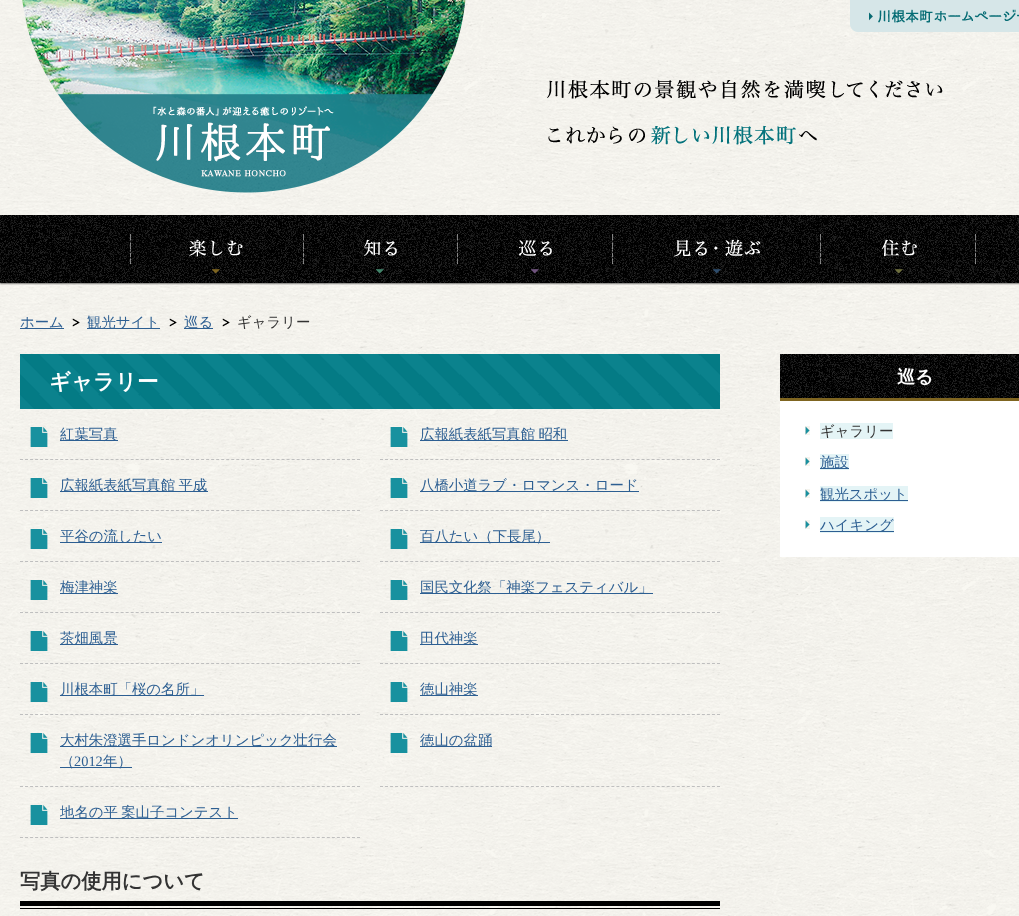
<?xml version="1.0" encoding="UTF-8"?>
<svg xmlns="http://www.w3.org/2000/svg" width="1019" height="916">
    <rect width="100%" height="100%" fill="#FFFFFF"/>
    <image x="0" y="0" width="1019" height="916" href="img_01.png"/>
    <image x="22" y="0" width="444" height="193" href="img_02.png"/>
    <image x="850" y="0" width="169" height="32" href="img_03.png"/>
    <image x="547" y="80" width="396" height="65" href="img_04.png"/>
    <image x="0" y="215" width="1019" height="70" href="img_05.png"/>
    <image x="130" y="230" width="1" height="38" href="img_06.png"/>
    <image x="303" y="230" width="1" height="38" href="img_06.png"/>
    <image x="131" y="215" width="172" height="68" href="img_07.png"/>
    <image x="457" y="230" width="1" height="38" href="img_06.png"/>
    <image x="306" y="215" width="151" height="68" href="img_08.png"/>
    <image x="612" y="230" width="1" height="38" href="img_06.png"/>
    <image x="460" y="215" width="152" height="68" href="img_09.png"/>
    <image x="820" y="230" width="1" height="38" href="img_06.png"/>
    <image x="615" y="215" width="205" height="68" href="img_10.png"/>
    <image x="975" y="230" width="1" height="38" href="img_06.png"/>
    <image x="823" y="215" width="152" height="68" href="img_11.png"/>
    <rect x="20" y="328" width="44" height="1" fill="#2D5F92"/>
    <text x="20" y="327" font-family="WenQuanYi Zen Hei" font-size="14.4" font-weight="500" fill="#2D5F92">ホーム</text>
    <image x="72" y="318" width="8" height="9" href="img_12.png"/>
    <rect x="87" y="328" width="73" height="1" fill="#2D5F92"/>
    <text x="87" y="327" font-family="WenQuanYi Zen Hei" font-size="14.4" font-weight="500" fill="#2D5F92">観光サイト</text>
    <image x="169" y="318" width="8" height="9" href="img_13.png"/>
    <rect x="184" y="328" width="29" height="1" fill="#2D5F92"/>
    <text x="184" y="327" font-family="WenQuanYi Zen Hei" font-size="14.4" font-weight="500" fill="#2D5F92">巡る</text>
    <image x="222" y="318" width="8" height="9" href="img_14.png"/>
    <text x="237" y="327" font-family="WenQuanYi Zen Hei" font-size="14.4" font-weight="500" fill="#333333">ギャラリー</text>
    <image x="20" y="354" width="700" height="55" href="img_15.png"/>
    <text x="49" y="389" font-family="WenQuanYi Zen Hei" font-size="21.5" font-weight="700" fill="#FFFFFF">ギャラリー</text>
    <image x="30" y="427" width="18" height="20" href="img_16.png"/>
    <path d="M 20 459.5 H 360" fill="none" stroke="#BFBFBF" stroke-dasharray="3 2.03"/>
    <rect x="60" y="440" width="58" height="1" fill="#2D5F92"/>
    <text x="60" y="439" font-family="WenQuanYi Zen Hei" font-size="14.4" font-weight="500" fill="#2D5F92">紅葉写真</text>
    <image x="390" y="427" width="18" height="20" href="img_17.png"/>
    <path d="M 380 459.5 H 720" fill="none" stroke="#BFBFBF" stroke-dasharray="3 2.03"/>
    <rect x="420" y="440" width="148" height="1" fill="#2D5F92"/>
    <text x="420" y="439" word-spacing="-1" font-family="WenQuanYi Zen Hei" font-size="14.4" font-weight="500" fill="#2D5F92">広報紙表紙写真館 昭和</text>
    <image x="30" y="478" width="18" height="20" href="img_18.png"/>
    <path d="M 20 510.5 H 360" fill="none" stroke="#BFBFBF" stroke-dasharray="3 2.03"/>
    <rect x="60" y="491" width="148" height="1" fill="#2D5F92"/>
    <text x="60" y="490" word-spacing="-1" font-family="WenQuanYi Zen Hei" font-size="14.4" font-weight="500" fill="#2D5F92">広報紙表紙写真館 平成</text>
    <image x="390" y="478" width="18" height="20" href="img_19.png"/>
    <path d="M 380 510.5 H 720" fill="none" stroke="#BFBFBF" stroke-dasharray="3 2.03"/>
    <rect x="420" y="491" width="219" height="1" fill="#2D5F92"/>
    <text x="420" y="490" font-family="WenQuanYi Zen Hei" font-size="14.4" font-weight="500" fill="#2D5F92">八橋小道ラブ・ロマンス・ロード</text>
    <image x="30" y="529" width="18" height="20" href="img_20.png"/>
    <path d="M 20 561.5 H 360" fill="none" stroke="#BFBFBF" stroke-dasharray="3 2.03"/>
    <rect x="60" y="542" width="102" height="1" fill="#2D5F92"/>
    <text x="60" y="541" font-family="WenQuanYi Zen Hei" font-size="14.4" font-weight="500" fill="#2D5F92">平谷の流したい</text>
    <image x="390" y="529" width="18" height="20" href="img_21.png"/>
    <path d="M 380 561.5 H 720" fill="none" stroke="#BFBFBF" stroke-dasharray="3 2.03"/>
    <rect x="420" y="542" width="130" height="1" fill="#2D5F92"/>
    <text x="420" y="541" font-family="WenQuanYi Zen Hei" font-size="14.4" font-weight="500" fill="#2D5F92">百八たい（下長尾）</text>
    <image x="30" y="580" width="18" height="20" href="img_22.png"/>
    <path d="M 20 612.5 H 360" fill="none" stroke="#BFBFBF" stroke-dasharray="3 2.03"/>
    <rect x="60" y="593" width="58" height="1" fill="#2D5F92"/>
    <text x="60" y="592" font-family="WenQuanYi Zen Hei" font-size="14.4" font-weight="500" fill="#2D5F92">梅津神楽</text>
    <image x="390" y="580" width="18" height="20" href="img_23.png"/>
    <path d="M 380 612.5 H 720" fill="none" stroke="#BFBFBF" stroke-dasharray="3 2.03"/>
    <rect x="420" y="593" width="233" height="1" fill="#2D5F92"/>
    <text x="420" y="592" font-family="WenQuanYi Zen Hei" font-size="14.4" font-weight="500" fill="#2D5F92">国民文化祭「神楽フェスティバル」</text>
    <image x="30" y="631" width="18" height="20" href="img_24.png"/>
    <path d="M 20 663.5 H 360" fill="none" stroke="#BFBFBF" stroke-dasharray="3 2.03"/>
    <rect x="60" y="644" width="58" height="1" fill="#2D5F92"/>
    <text x="60" y="643" font-family="WenQuanYi Zen Hei" font-size="14.4" font-weight="500" fill="#2D5F92">茶畑風景</text>
    <image x="390" y="631" width="18" height="20" href="img_25.png"/>
    <path d="M 380 663.5 H 720" fill="none" stroke="#BFBFBF" stroke-dasharray="3 2.03"/>
    <rect x="420" y="644" width="58" height="1" fill="#2D5F92"/>
    <text x="420" y="643" font-family="WenQuanYi Zen Hei" font-size="14.4" font-weight="500" fill="#2D5F92">田代神楽</text>
    <image x="30" y="682" width="18" height="20" href="img_26.png"/>
    <path d="M 20 714.5 H 360" fill="none" stroke="#BFBFBF" stroke-dasharray="3 2.03"/>
    <rect x="60" y="695" width="144" height="1" fill="#2D5F92"/>
    <text x="60" y="694" font-family="WenQuanYi Zen Hei" font-size="14.4" font-weight="500" fill="#2D5F92">川根本町「桜の名所」</text>
    <image x="390" y="682" width="18" height="20" href="img_27.png"/>
    <path d="M 380 714.5 H 720" fill="none" stroke="#BFBFBF" stroke-dasharray="3 2.03"/>
    <rect x="420" y="695" width="58" height="1" fill="#2D5F92"/>
    <text x="420" y="694" font-family="WenQuanYi Zen Hei" font-size="14.4" font-weight="500" fill="#2D5F92">徳山神楽</text>
    <image x="30" y="733" width="18" height="20" href="img_28.png"/>
    <path d="M 20 786.5 H 360" fill="none" stroke="#BFBFBF" stroke-dasharray="3 2.03"/>
    <rect x="60" y="746" width="277" height="1" fill="#2D5F92"/>
    <text x="60" y="745" font-family="WenQuanYi Zen Hei" font-size="14.4" font-weight="500" fill="#2D5F92">大村朱澄選手ロンドンオリンピック壮行会</text>
    <rect x="60" y="767" width="72" height="1" fill="#2D5F92"/>
    <text x="60" y="766" font-family="WenQuanYi Zen Hei" font-size="14.4" font-weight="500" fill="#2D5F92">（</text>
    <text x="74" y="766" font-family="Liberation Serif" font-size="14.4" fill="#2D5F92">2012</text>
    <text x="103" y="766" font-family="WenQuanYi Zen Hei" font-size="14.4" font-weight="500" fill="#2D5F92">年）</text>
    <image x="390" y="733" width="18" height="20" href="img_29.png"/>
    <path d="M 380 786.5 H 720" fill="none" stroke="#BFBFBF" stroke-dasharray="3 2.03"/>
    <rect x="420" y="746" width="72" height="1" fill="#2D5F92"/>
    <text x="420" y="745" font-family="WenQuanYi Zen Hei" font-size="14.4" font-weight="500" fill="#2D5F92">徳山の盆踊</text>
    <image x="30" y="805" width="18" height="20" href="img_30.png"/>
    <path d="M 20 837.5 H 360" fill="none" stroke="#BFBFBF" stroke-dasharray="3 2.03"/>
    <rect x="60" y="818" width="178" height="1" fill="#2D5F92"/>
    <text x="60" y="817" word-spacing="-1" font-family="WenQuanYi Zen Hei" font-size="14.4" font-weight="500" fill="#2D5F92">地名の平 案山子コンテスト</text>
    <rect x="20" y="908" width="700" height="1" fill="#000000"/>
    <rect x="20" y="901" width="700" height="5" fill="#000000"/>
    <text x="20" y="888" font-family="WenQuanYi Zen Hei" font-size="20.25" font-weight="700" fill="#333333">写真の使用について</text>
    <rect x="780" y="401" width="239" height="156" fill="#FFFFFF"/>
    <image x="780" y="354" width="239" height="44" href="img_31.png"/>
    <rect x="780" y="398" width="239" height="3" fill="#7F6520"/>
    <text x="897" y="383" font-family="WenQuanYi Zen Hei" font-size="18" font-weight="700" fill="#FFFFFF">巡る</text>
    <image x="805" y="426" width="5" height="9" href="img_32.png"/>
    <rect x="820" y="423" width="73" height="16" fill="#E4F4F6"/>
    <text x="820" y="436" font-family="WenQuanYi Zen Hei" font-size="14.4" font-weight="500" fill="#333333">ギャラリー</text>
    <image x="805" y="457" width="5" height="9" href="img_32.png"/>
    <rect x="820" y="454" width="29" height="16" fill="#E4F4F6"/>
    <rect x="820" y="468" width="29" height="1" fill="#2D5F92"/>
    <text x="820" y="467" font-family="WenQuanYi Zen Hei" font-size="14.4" font-weight="500" fill="#2D5F92">施設</text>
    <image x="805" y="489" width="5" height="9" href="img_32.png"/>
    <rect x="820" y="486" width="88" height="16" fill="#E4F4F6"/>
    <rect x="820" y="500" width="88" height="1" fill="#2D5F92"/>
    <text x="820" y="499" font-family="WenQuanYi Zen Hei" font-size="14.4" font-weight="500" fill="#2D5F92">観光スポット</text>
    <image x="805" y="520" width="5" height="9" href="img_32.png"/>
    <rect x="820" y="517" width="74" height="16" fill="#E4F4F6"/>
    <rect x="820" y="531" width="74" height="1" fill="#2D5F92"/>
    <text x="820" y="530" font-family="WenQuanYi Zen Hei" font-size="14.4" font-weight="500" fill="#2D5F92">ハイキング</text>
</svg>
